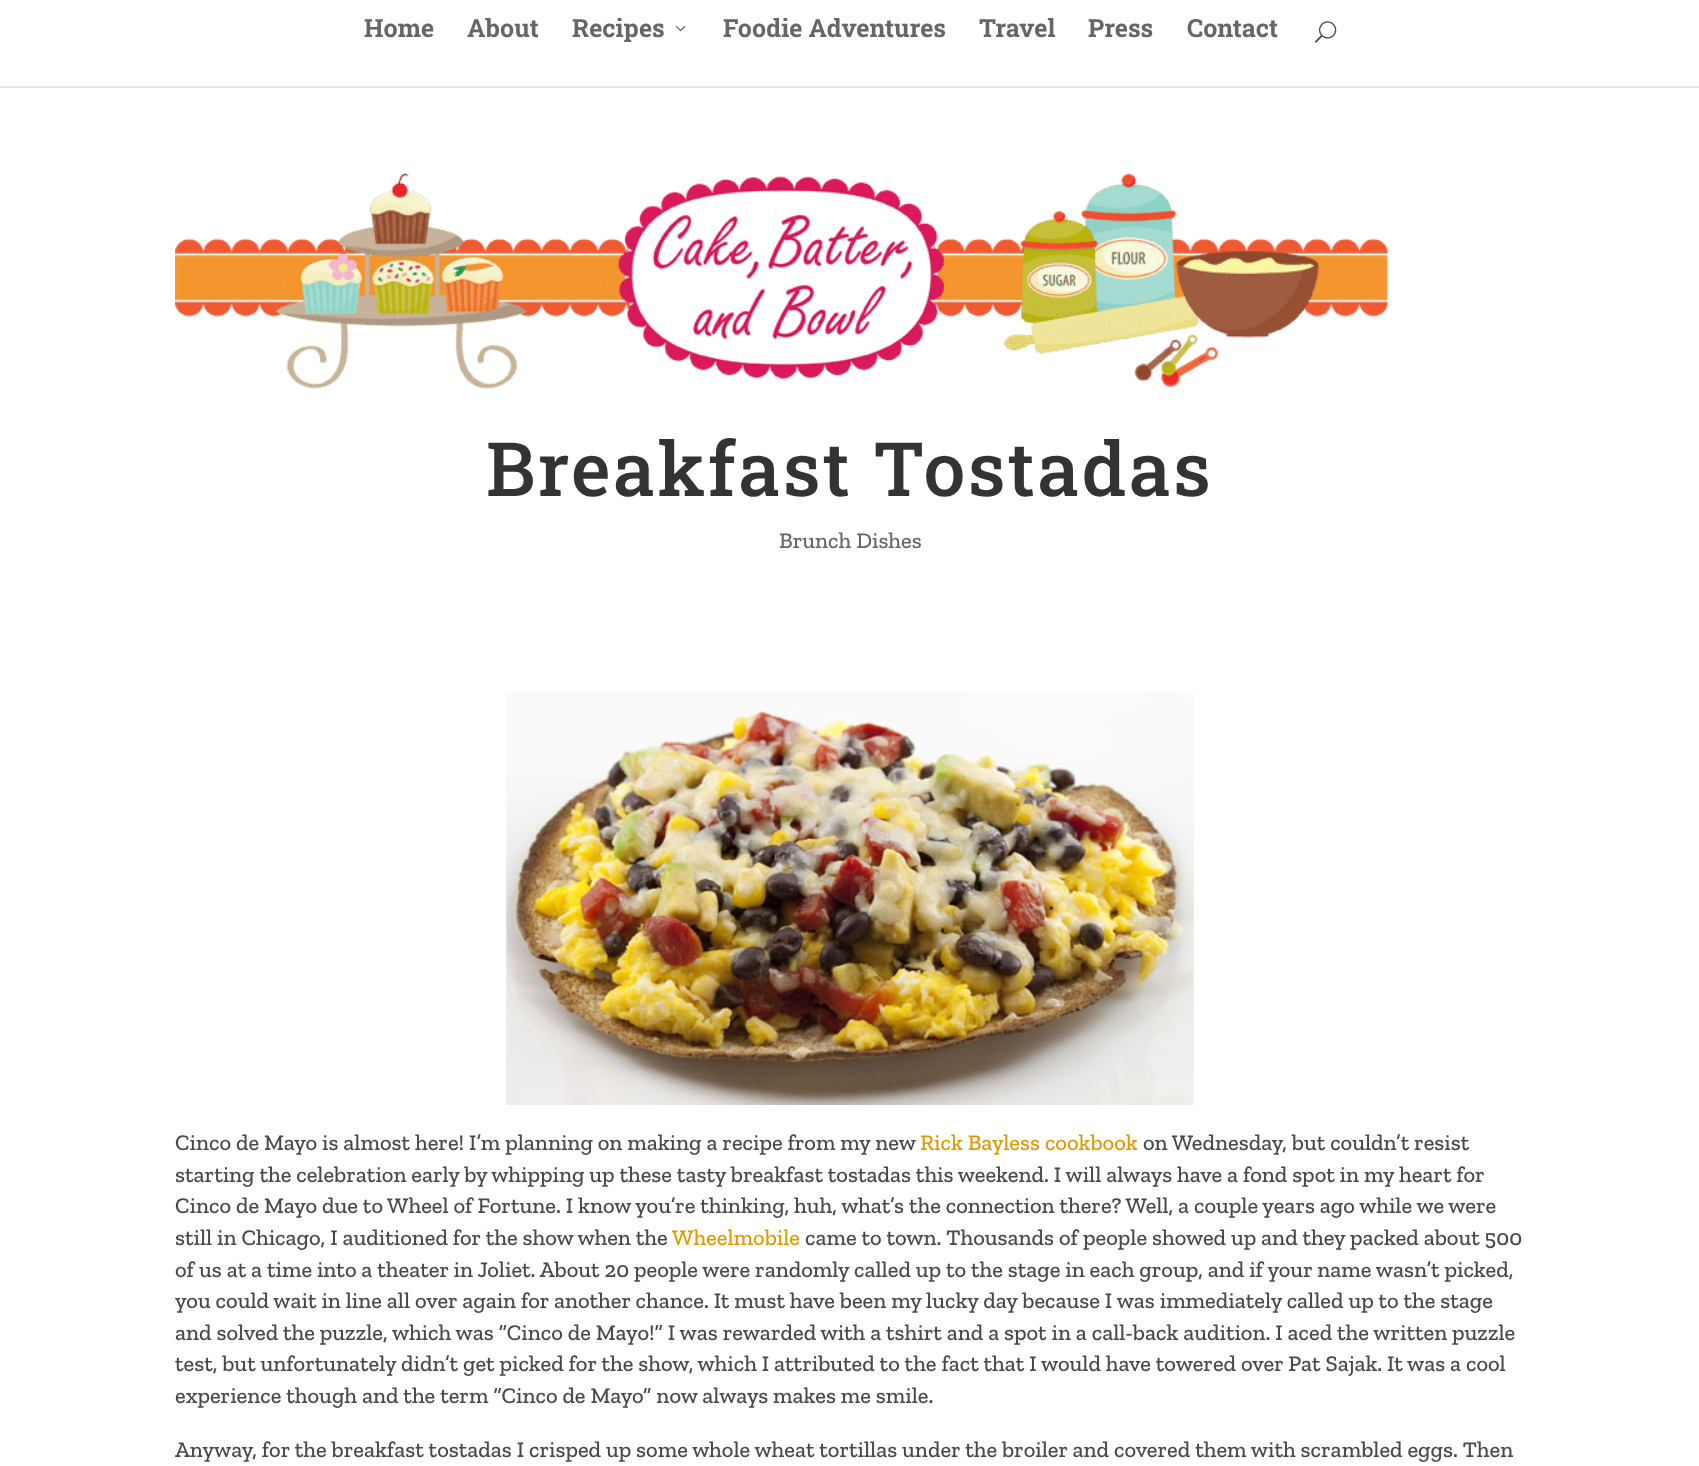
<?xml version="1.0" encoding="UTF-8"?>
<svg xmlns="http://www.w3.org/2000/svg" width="1699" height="1466">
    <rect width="100%" height="100%" fill="#FFFFFF"/>
    <rect x="0" y="86" width="1699" height="2" fill="#E6E6E6"/>
    <text x="364" y="37" font-family="Roboto Slab" font-size="25" font-weight="700" fill="#666666">Home</text>
    <text x="467" y="37" font-family="Roboto Slab" font-size="25" font-weight="700" fill="#666666">About</text>
    <text x="572" y="37" font-family="Roboto Slab" font-size="25" font-weight="700" fill="#666666">Recipes</text>
    <image x="676" y="26" width="10" height="6" href="img_01.png"/>
    <text x="723" y="37" font-family="Roboto Slab" font-size="25" font-weight="700" fill="#666666">Foodie Adventures</text>
    <text x="979" y="37" font-family="Roboto Slab" font-size="25" font-weight="700" fill="#666666">Travel</text>
    <text x="1088" y="37" font-family="Roboto Slab" font-size="25" font-weight="700" fill="#666666">Press</text>
    <text x="1187" y="37" font-family="Roboto Slab" font-size="25" font-weight="700" fill="#666666">Contact</text>
    <image x="1315" y="21" width="22" height="22" href="img_02.png"/>
    <image x="175" y="173" width="1213" height="216" href="img_03.png"/>
    <text x="486" y="496" font-family="Roboto Slab" font-size="75" font-weight="500" letter-spacing="2.5" fill="#333333">Breakfast Tostadas</text>
    <text x="779" y="548" font-family="Zilla Slab" font-size="22.5" font-weight="500" fill="#666666">Brunch Dishes</text>
    <image x="506" y="692" width="688" height="413" href="img_04.png"/>
    <text x="175" y="1150" font-family="Zilla Slab" font-size="22.5" font-weight="500" fill="#494949">Cinco de Mayo is almost here! I’m planning on making a recipe from my new</text>
    <text x="920" y="1150" font-family="Zilla Slab" font-size="22.5" font-weight="500" fill="#E09900">Rick Bayless cookbook</text>
    <text x="1143" y="1150" font-family="Zilla Slab" font-size="22.5" font-weight="500" fill="#494949">on Wednesday, but couldn’t resist</text>
    <text font-family="Zilla Slab" font-size="22.5" font-weight="500" fill="#494949">
        <tspan x="175" y="1182">starting the celebration early by whipping up these tasty breakfast tostadas this weekend. I will always have a fond spot in my heart for</tspan>
        <tspan x="175" y="1213">Cinco de Mayo due to Wheel of Fortune. I know you’re thinking, huh, what’s the connection there? Well, a couple years ago while we were</tspan>
        <tspan x="175" y="1245">still in Chicago, I auditioned for the show when the</tspan>
    </text>
    <text x="672" y="1245" font-family="Zilla Slab" font-size="22.5" font-weight="500" fill="#E09900">Wheelmobile</text>
    <text x="805" y="1245" font-family="Zilla Slab" font-size="22.5" font-weight="500" fill="#494949">came to town. Thousands of people showed up and they packed about 500</text>
    <text font-family="Zilla Slab" font-size="22.5" font-weight="500" fill="#494949">
        <tspan x="175" y="1277">of us at a time into a theater in Joliet. About 20 people were randomly called up to the stage in each group, and if your name wasn’t picked,</tspan>
        <tspan x="175" y="1308">you could wait in line all over again for another chance. It must have been my lucky day because I was immediately called up to the stage</tspan>
        <tspan x="175" y="1340">and solved the puzzle, which was “Cinco de Mayo!” I was rewarded with a tshirt and a spot in a call-back audition. I aced the written puzzle</tspan>
        <tspan x="175" y="1371">test, but unfortunately didn’t get picked for the show, which I attributed to the fact that I would have towered over Pat Sajak. It was a cool</tspan>
        <tspan x="175" y="1403">experience though and the term “Cinco de Mayo” now always makes me smile.</tspan>
    </text>
    <text x="175" y="1457" font-family="Zilla Slab" font-size="22.5" font-weight="500" fill="#494949">Anyway, for the breakfast tostadas I crisped up some whole wheat tortillas under the broiler and covered them with scrambled eggs. Then</text>
</svg>
